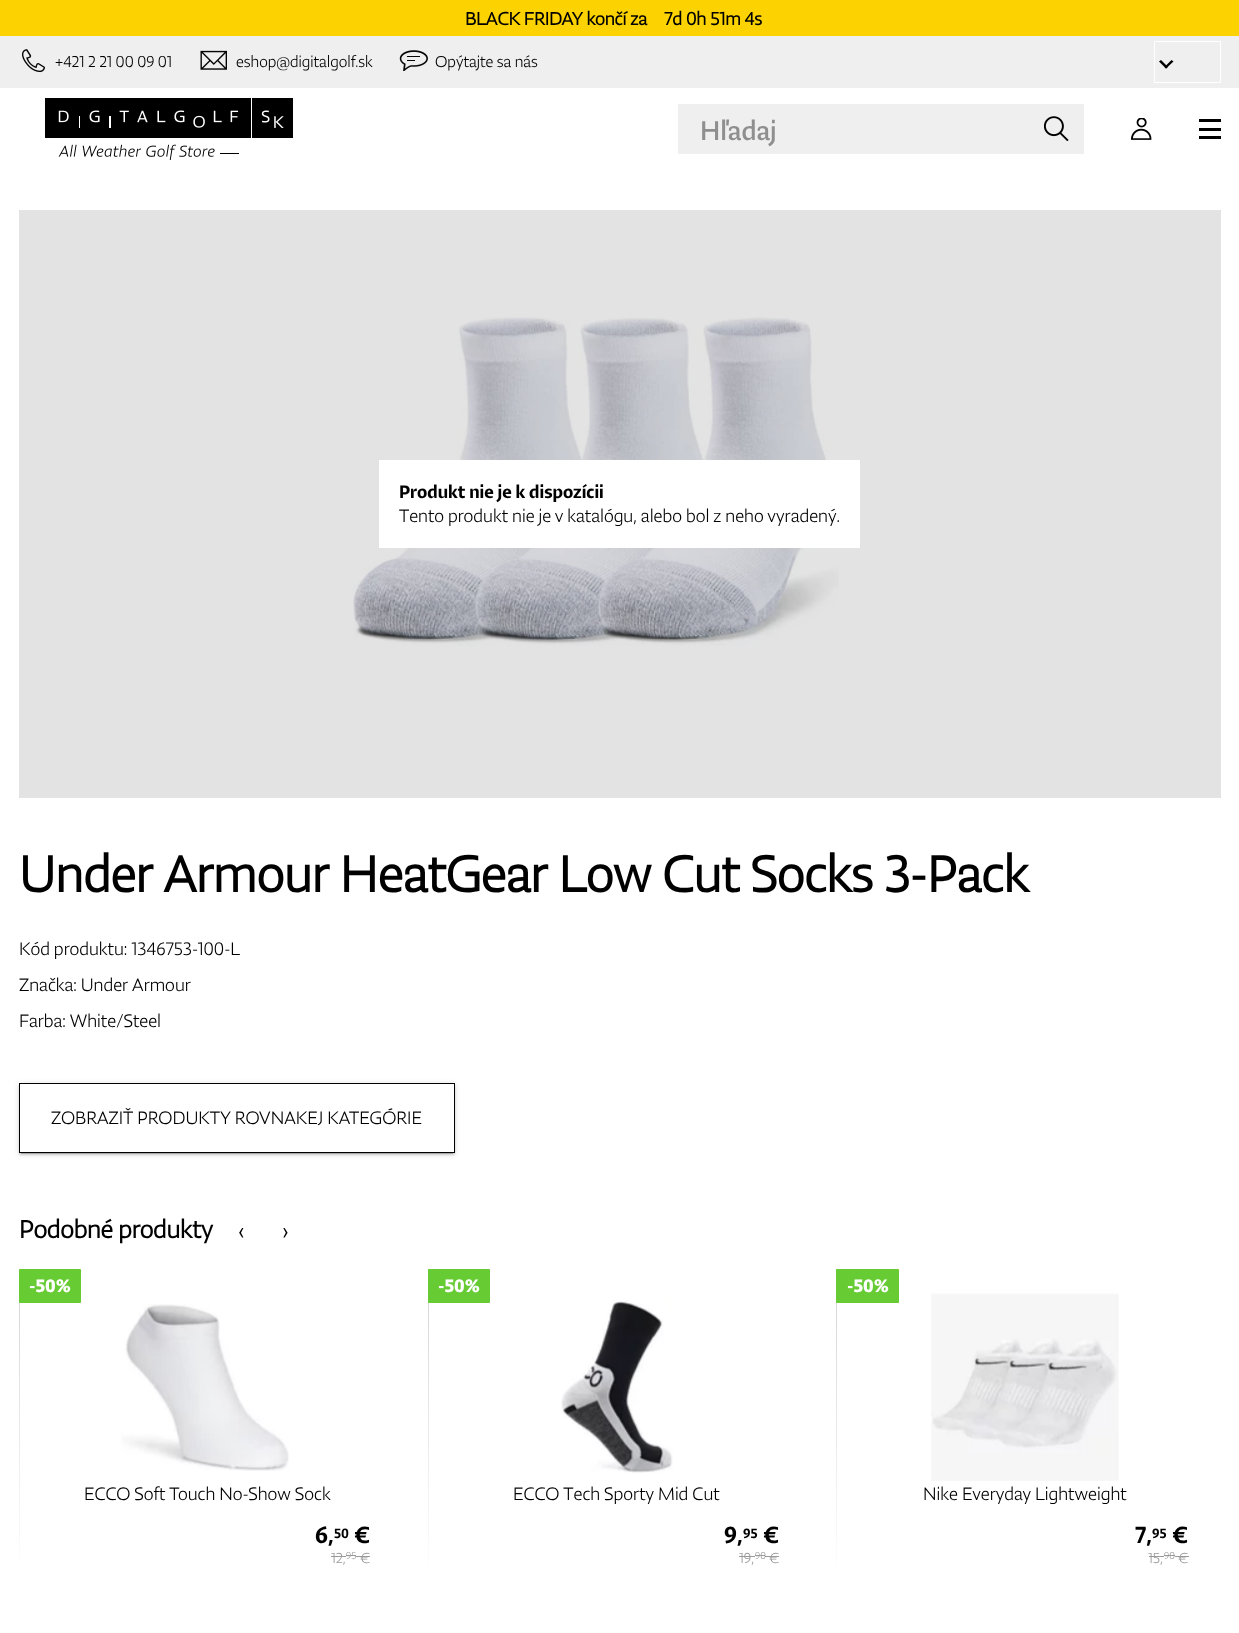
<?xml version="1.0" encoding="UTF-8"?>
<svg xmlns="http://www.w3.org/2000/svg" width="1239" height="1633">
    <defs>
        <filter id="blur1" x="-50%" y="-200%" width="200%" height="500%"><feGaussianBlur stdDeviation="3"/></filter>
        <filter id="blur2" x="-50%" y="-200%" width="200%" height="500%"><feGaussianBlur stdDeviation="1"/></filter>
        <filter id="blur3" x="-50%" y="-200%" width="200%" height="500%"><feGaussianBlur stdDeviation="0.5"/></filter>
        <linearGradient id="g1" gradientUnits="userSpaceOnUse" x1="19" y1="1269" x2="19" y2="1581"><stop offset="0" stop-color="#D3D3D3"/><stop offset="1" stop-color="#FFFFFF"/></linearGradient>
        <linearGradient id="g2" gradientUnits="userSpaceOnUse" x1="428" y1="1269" x2="428" y2="1581"><stop offset="0" stop-color="#D3D3D3"/><stop offset="1" stop-color="#FFFFFF"/></linearGradient>
        <linearGradient id="g3" gradientUnits="userSpaceOnUse" x1="837" y1="1269" x2="837" y2="1581"><stop offset="0" stop-color="#D3D3D3"/><stop offset="1" stop-color="#FFFFFF"/></linearGradient>
    </defs>
    <rect width="100%" height="100%" fill="#FFFFFF"/>
    <rect x="19" y="210" width="1202" height="588" fill="#E3E3E3"/>
    <rect x="0" y="0" width="1239" height="36" fill="#FCD200"/>
    <text x="465" y="25" font-family="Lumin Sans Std" font-size="20" font-weight="700" fill="#000000">BLACK FRIDAY končí za</text>
    <text x="664" y="25" font-family="Lumin Sans Std" font-size="20" font-weight="700" fill="#000000">7d 0h 51m 4s</text>
    <rect x="0" y="36" width="1239" height="52" fill="#EFEFEF"/>
    <image x="22" y="49" width="23" height="24" href="img_01.png"/>
    <text x="55" y="67" font-family="Lumin Sans Std" font-size="17.5" font-weight="300" fill="#000000">+421 2 21 00 09 01</text>
    <image x="200" y="50" width="27" height="20" href="img_02.png"/>
    <text x="236" y="67" font-family="Lumin Sans Std" font-size="17.5" font-weight="300" fill="#000000">eshop@digitalgolf.sk</text>
    <image x="399" y="50" width="29" height="21" href="img_03.png"/>
    <text x="435" y="67" font-family="Lumin Sans Std" font-size="17.5" font-weight="300" fill="#000000">Opýtajte sa nás</text>
    <rect x="1154.5" y="41.5" width="66" height="41" fill="none" stroke="#FFFFFF"/>
    <path d="M 1171.5 60 L 1173.5 61.5 L 1166 68.5 L 1164.5 67 Z" fill="#000000"/>
    <path d="M 1161 60 L 1168 67 L 1166 68.5 L 1159 61.5 Z" fill="#000000"/>
    <image x="45" y="98" width="248" height="62" href="img_04.png"/>
    <rect x="678" y="104" width="406" height="50" fill="#EFEFEF"/>
    <text x="700" y="140" font-family="Lumin Sans Std" font-size="30" fill="#8F8F8F">Hľadaj</text>
    <image x="1044" y="116" width="25" height="25" href="img_05.png"/>
    <image x="1131" y="118" width="21" height="22" href="img_06.png"/>
    <rect x="1199" y="128" width="22" height="3" fill="#000000"/>
    <rect x="1199" y="119" width="22" height="3" fill="#000000"/>
    <rect x="1199" y="136" width="22" height="3" fill="#000000"/>
    <image x="353" y="317" width="486" height="329" href="img_07.png"/>
    <rect x="379" y="460" width="481" height="88" fill="#FFFFFF"/>
    <text x="399" y="498" font-family="Lumin Sans Std" font-size="20" font-weight="500" fill="#000000">Produkt nie je k dispozícii</text>
    <text x="399" y="522" font-family="Lumin Sans Std" font-size="20" font-weight="300" fill="#000000">Tento produkt nie je v katalógu, alebo bol z neho vyradený.</text>
    <text x="19" y="892" font-family="Lumin Sans Std" font-size="56.25" font-weight="700" fill="#000000">Under Armour HeatGear Low Cut Socks 3-Pack</text>
    <text font-family="Lumin Sans Std" font-size="20" font-weight="300" fill="#000000">
        <tspan x="19" y="955">Kód produktu: 1346753-100-L</tspan>
        <tspan x="19" y="991">Značka: Under Armour</tspan>
        <tspan x="19" y="1027">Farba: White/Steel</tspan>
    </text>
    <rect x="19" y="1084" width="436" height="70" fill="#000000" fill-opacity="0.12" filter="url(#blur1)"/>
    <rect x="19" y="1085" width="436" height="70" fill="#000000" fill-opacity="0.14" filter="url(#blur2)"/>
    <rect x="21" y="1089" width="432" height="65" fill="#000000" fill-opacity="0.2" filter="url(#blur3)"/>
    <rect x="19.5" y="1083.5" width="435" height="69" fill="#FFFFFF" stroke="#000000"/>
    <text x="51" y="1124" font-family="Lumin Sans Std" font-size="20" font-weight="300" fill="#000000">ZOBRAZIŤ PRODUKTY ROVNAKEJ KATEGÓRIE</text>
    <text x="19" y="1238" font-family="Lumin Sans Std" font-size="27.5" font-weight="700" fill="#000000">Podobné produkty</text>
    <text x="238" y="1239" font-family="Lumin Sans Std" font-size="27.5" font-weight="300" fill="#000000">‹</text>
    <text x="282" y="1239" font-family="Lumin Sans Std" font-size="27.5" font-weight="300" fill="#000000">›</text>
    <rect x="19" y="1269" width="1" height="294" fill="url(#g1)"/>
    <rect x="19" y="1269" width="62" height="34" rx="1" fill="#67CB34"/>
    <text x="29" y="1292" font-family="'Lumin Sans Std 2'" font-size="20" font-weight="700" fill="#FFFFFF">-50%</text>
    <image x="121" y="1304" width="168" height="167" href="img_08.png"/>
    <text x="84" y="1500" font-family="Lumin Sans Std" font-size="20" font-weight="300" fill="#000000">ECCO Soft Touch No-Show Sock</text>
    <text x="315" y="1543" font-family="Lumin Sans Std" font-size="26" font-weight="500" fill="#000000">6,</text>
    <text x="334" y="1538" font-family="Lumin Sans Std" font-size="15" font-weight="500" fill="#000000">50</text>
    <text x="354" y="1543" font-family="Lumin Sans Std" font-size="26" font-weight="500" fill="#000000">€</text>
    <text x="331" y="1563" font-family="Lumin Sans Std" font-size="16" font-weight="300" fill="#999999">12,</text>
    <rect x="331" y="1556" width="15" height="1" fill="#999999"/>
    <text x="346" y="1559" font-family="Lumin Sans Std" font-size="11" font-weight="300" fill="#999999">95</text>
    <rect x="346" y="1555" width="10" height="1" fill="#999999"/>
    <text x="360" y="1563" font-family="Lumin Sans Std" font-size="16" font-weight="300" fill="#999999">€</text>
    <rect x="356" y="1556" width="14" height="1" fill="#999999"/>
    <rect x="428" y="1269" width="1" height="294" fill="url(#g2)"/>
    <rect x="428" y="1269" width="62" height="34" rx="1" fill="#67CB34"/>
    <text x="438" y="1292" font-family="'Lumin Sans Std 2'" font-size="20" font-weight="700" fill="#FFFFFF">-50%</text>
    <image x="561" y="1300" width="112" height="173" href="img_09.png"/>
    <text x="513" y="1500" font-family="Lumin Sans Std" font-size="20" font-weight="300" fill="#000000">ECCO Tech Sporty Mid Cut</text>
    <text x="724" y="1543" font-family="Lumin Sans Std" font-size="26" font-weight="500" fill="#000000">9,</text>
    <text x="743" y="1538" font-family="Lumin Sans Std" font-size="15" font-weight="500" fill="#000000">95</text>
    <text x="763" y="1543" font-family="Lumin Sans Std" font-size="26" font-weight="500" fill="#000000">€</text>
    <text x="739" y="1563" font-family="Lumin Sans Std" font-size="16" font-weight="300" fill="#999999">19,</text>
    <rect x="739" y="1556" width="16" height="1" fill="#999999"/>
    <text x="755" y="1559" font-family="Lumin Sans Std" font-size="11" font-weight="300" fill="#999999">90</text>
    <rect x="755" y="1555" width="10" height="1" fill="#999999"/>
    <text x="769" y="1563" font-family="Lumin Sans Std" font-size="16" font-weight="300" fill="#999999">€</text>
    <rect x="765" y="1556" width="14" height="1" fill="#999999"/>
    <rect x="836" y="1269" width="1" height="294" fill="url(#g3)"/>
    <rect x="836" y="1269" width="63" height="34" rx="1" fill="#67CB34"/>
    <text x="847" y="1292" font-family="'Lumin Sans Std 2'" font-size="20" font-weight="700" fill="#FFFFFF">-50%</text>
    <image x="931" y="1293" width="188" height="188" href="img_10.png"/>
    <text x="923" y="1500" font-family="Lumin Sans Std" font-size="20" font-weight="300" fill="#000000">Nike Everyday Lightweight</text>
    <text x="1135" y="1543" font-family="Lumin Sans Std" font-size="26" font-weight="500" fill="#000000">7,</text>
    <text x="1152" y="1538" font-family="Lumin Sans Std" font-size="15" font-weight="500" fill="#000000">95</text>
    <text x="1172" y="1543" font-family="Lumin Sans Std" font-size="26" font-weight="500" fill="#000000">€</text>
    <text x="1148" y="1563" font-family="Lumin Sans Std" font-size="16" font-weight="300" fill="#999999">15,</text>
    <rect x="1149" y="1556" width="15" height="1" fill="#999999"/>
    <text x="1164" y="1559" font-family="Lumin Sans Std" font-size="11" font-weight="300" fill="#999999">90</text>
    <rect x="1164" y="1555" width="11" height="1" fill="#999999"/>
    <text x="1178" y="1563" font-family="Lumin Sans Std" font-size="16" font-weight="300" fill="#999999">€</text>
    <rect x="1175" y="1556" width="14" height="1" fill="#999999"/>
</svg>
